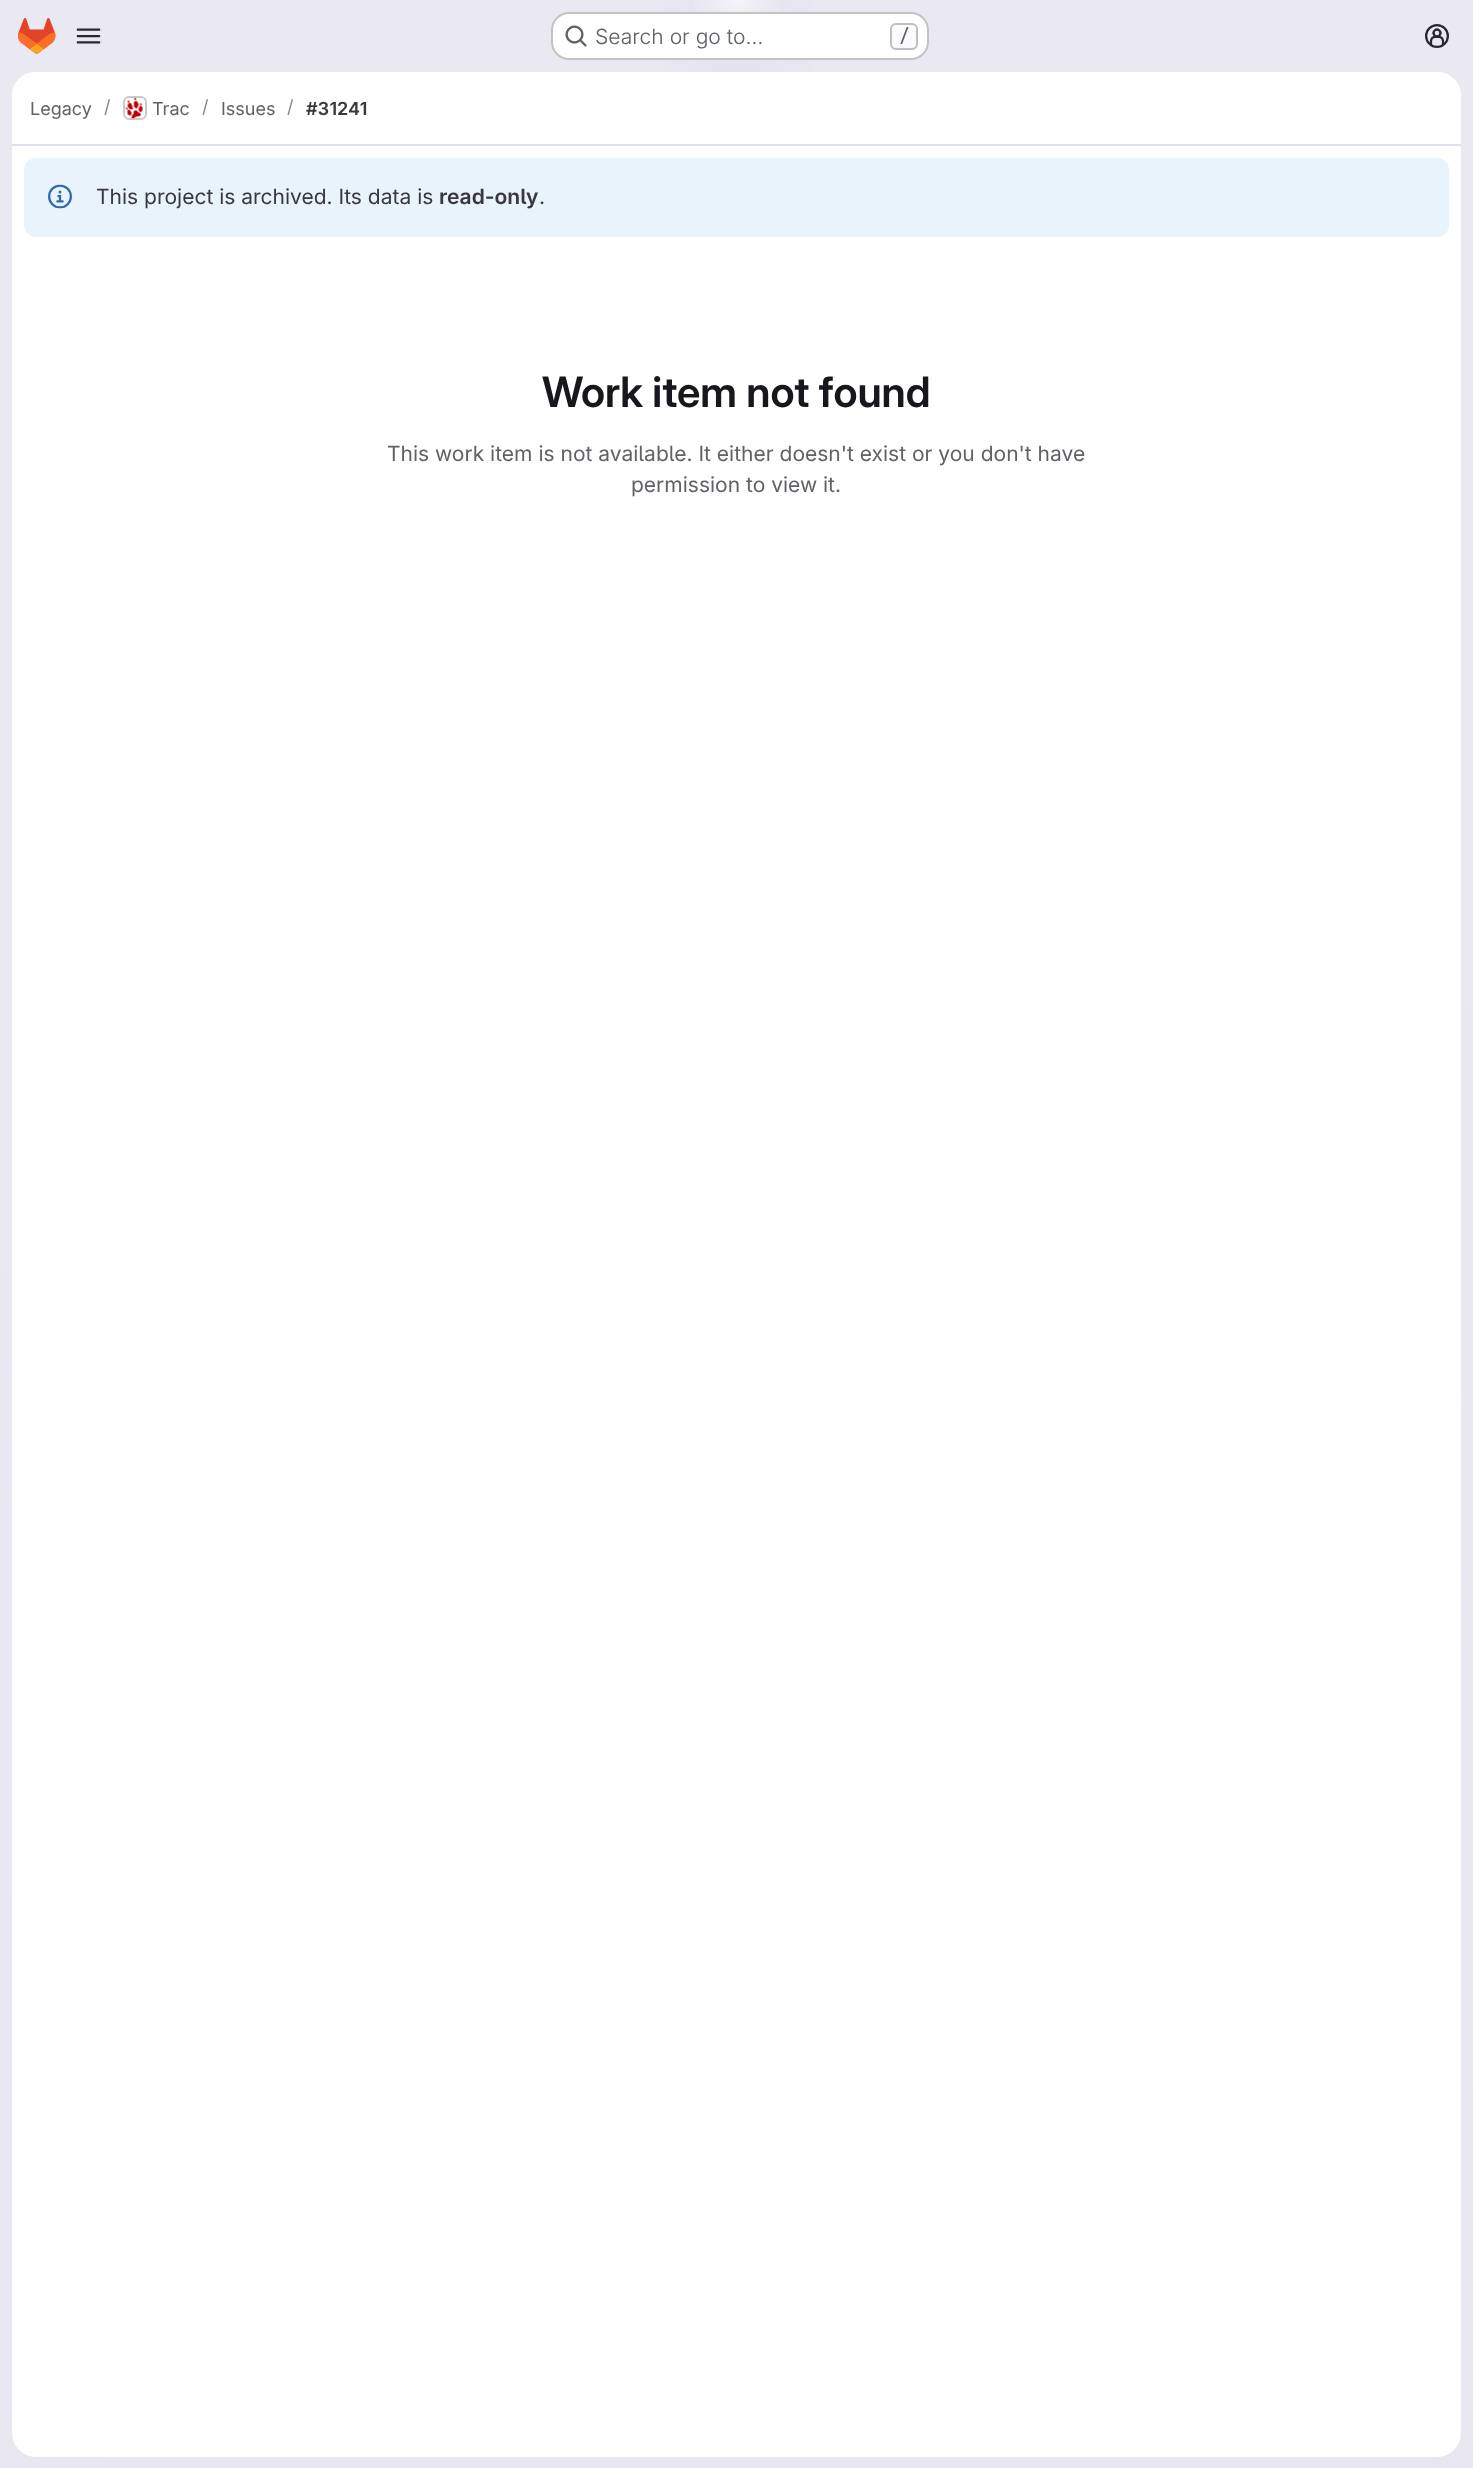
<?xml version="1.0" encoding="UTF-8"?>
<svg xmlns="http://www.w3.org/2000/svg" width="1473" height="2468">
    <defs>
        <linearGradient id="g1" gradientUnits="userSpaceOnUse" x1="970" y1="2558" x2="503" y2="-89"><stop offset="0" stop-color="#E8E6F0"/><stop offset="0.7" stop-color="#EAE9F2"/></linearGradient>
        <radialGradient id="g2" gradientUnits="userSpaceOnUse" cx="0" cy="0" r="1" gradientTransform="matrix(737 0 0 2469 737 0)"><stop offset="0" stop-color="#E4E2ED"/><stop offset="0.14" stop-color="#E4E2ED" stop-opacity="0"/></radialGradient>
        <radialGradient id="g3" gradientUnits="userSpaceOnUse" cx="0" cy="0" r="1" gradientTransform="matrix(737 0 0 2469 737 0)"><stop offset="0" stop-color="#E4E2EC"/><stop offset="0.1" stop-color="#E4E2EC" stop-opacity="0"/></radialGradient>
        <radialGradient id="g4" gradientUnits="userSpaceOnUse" cx="737" cy="0" r="2577"><stop offset="0" stop-color="#FFFFFF" stop-opacity="0.6"/><stop offset="0.02" stop-color="#FFFFFF" stop-opacity="0"/></radialGradient>
    </defs>
    <rect width="100%" height="100%" fill="#FFFFFF"/>
    <rect x="0" y="0" width="1473" height="2468" fill="url(#g1)"/>
    <rect x="663" y="0" width="149" height="72" fill="url(#g2)"/>
    <rect x="707" y="6" width="58" height="55" fill="url(#g3)"/>
    <rect x="693" y="0" width="88" height="12" fill="url(#g4)"/>
    <image x="18" y="18" width="38" height="36" href="img_01.png"/>
    <image x="76" y="28" width="25" height="16" href="img_02.png"/>
    <rect x="551" y="12" width="378" height="48" rx="18" fill="#FFFFFF"/>
    <rect x="552" y="13" width="376" height="46" rx="17" fill="none" stroke="#050506" stroke-opacity="0.24" stroke-width="2"/>
    <image x="565" y="25" width="22" height="22" href="img_03.png"/>
    <text x="595" y="44" font-family="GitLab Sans" font-size="21" font-weight="300" fill="#626168">Search or go to…</text>
    <rect x="891" y="24" width="26" height="25" rx="5" fill="#FBFAFD" stroke="#BFBFC3" stroke-width="2"/>
    <text x="899" y="42" font-family="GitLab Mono" font-size="18" font-weight="500" fill="#626168">/</text>
    <image x="1425" y="24" width="24" height="24" href="img_04.png"/>
    <rect x="12" y="72" width="1449" height="2385" rx="24" fill="#FFFFFF"/>
    <path d="M 36 72 H 1437 C 1450.5 72 1461 82.5 1461 96 V 146 H 12 V 96 C 12 82.5 22.5 72 36 72 Z" fill="#FFFFFF"/>
    <rect x="12" y="144" width="1449" height="2" fill="#E1DFEC"/>
    <text x="30" y="115" font-family="GitLab Sans" font-size="18" fill="#626168">Legacy</text>
    <text x="104" y="113" font-family="GitLab Sans" font-size="18" fill="#89888D">/</text>
    <rect x="124" y="97" width="22" height="22" rx="5" fill="none" stroke="#DCDCDE" stroke-width="2"/>
    <image x="125" y="97" width="18" height="22" href="img_05.png"/>
    <rect x="124" y="97" width="22" height="22" rx="5" fill="none" stroke="#050506" stroke-opacity="0.08" stroke-width="2"/>
    <text x="152" y="115" font-family="GitLab Sans" font-size="18" fill="#626168">Trac</text>
    <text x="202" y="113" font-family="GitLab Sans" font-size="18" fill="#89888D">/</text>
    <text x="221" y="115" font-family="GitLab Sans" font-size="18" fill="#626168">Issues</text>
    <text x="287" y="113" font-family="GitLab Sans" font-size="18" fill="#89888D">/</text>
    <text x="306" y="115" font-family="'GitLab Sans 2'" font-size="18" font-weight="600" fill="#3A383F">#31241</text>
    <rect x="24" y="158" width="1425" height="79" rx="12" fill="#E9F3FC"/>
    <image x="48" y="184" width="24" height="25" href="img_06.png"/>
    <text x="96" y="204" font-family="GitLab Sans" font-size="21" fill="#3A383F">This project is archived. Its data is</text>
    <text x="439" y="204" font-family="'GitLab Sans 2'" font-size="21" font-weight="600" fill="#3A383F">read-only</text>
    <text x="539" y="204" font-family="GitLab Sans" font-size="21" fill="#3A383F">.</text>
    <text x="542" y="407" font-family="GitLab Sans" font-size="42" font-weight="600" fill="#18171D">Work item not found</text>
    <text x="387" y="461" font-family="GitLab Sans" font-size="21" fill="#626168">This work item is not available. It either doesn't exist or you don't have</text>
    <text x="631" y="492" font-family="GitLab Sans" font-size="21" fill="#626168">permission to view it.</text>
</svg>
